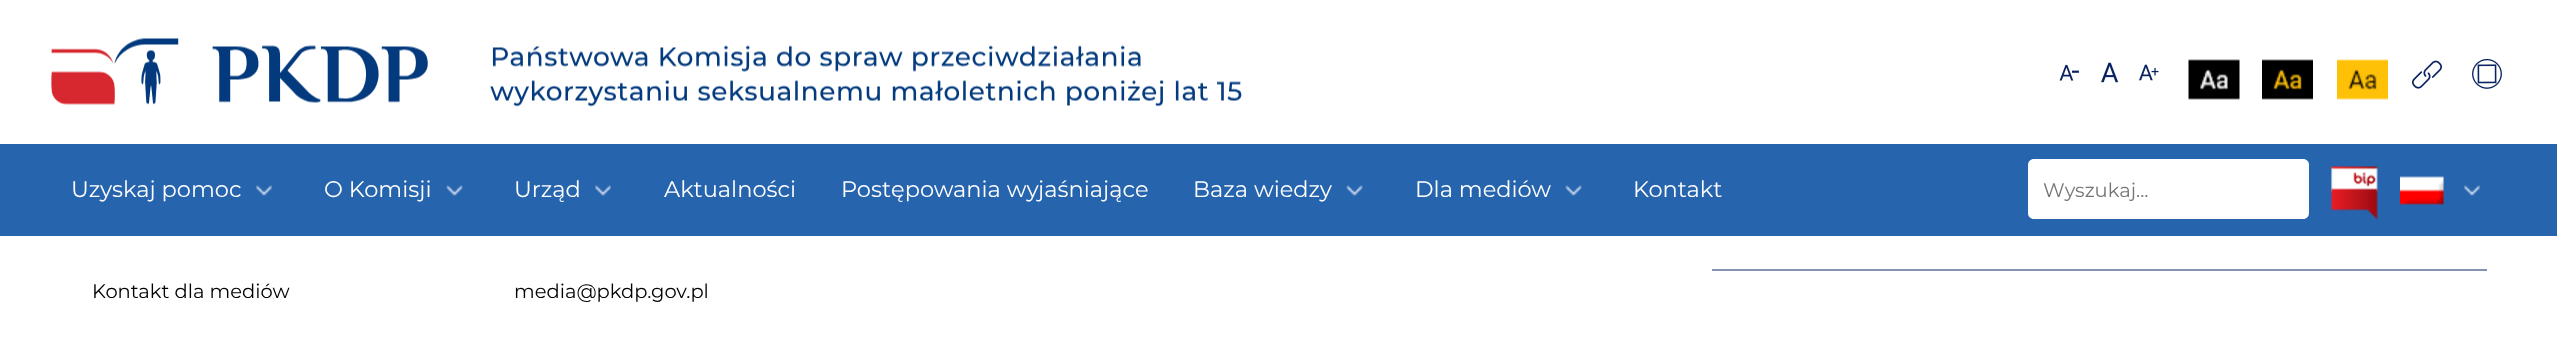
<?xml version="1.0" encoding="UTF-8"?>
<svg xmlns="http://www.w3.org/2000/svg" width="2557" height="350">
    <rect width="100%" height="100%" fill="#FFFFFF"/>
    <image x="51" y="38" width="1191" height="69" href="img_01.png"/>
    <image x="2059" y="64" width="20" height="17" href="img_02.png"/>
    <image x="2101" y="62" width="18" height="21" href="img_03.png"/>
    <image x="2139" y="64" width="20" height="17" href="img_04.png"/>
    <image x="2188" y="59" width="52" height="41" href="img_05.png"/>
    <image x="2262" y="59" width="51" height="41" href="img_06.png"/>
    <image x="2337" y="59" width="51" height="41" href="img_07.png"/>
    <image x="2412" y="60" width="30" height="29" href="img_08.png"/>
    <image x="2472" y="58" width="30" height="31" href="img_09.png"/>
    <rect x="0" y="144" width="2557" height="92" fill="#2764AE"/>
    <text x="71" y="197" font-family="Montserrat" font-size="22.5" font-weight="100" fill="#FFFFFF">Uzyskaj pomoc</text>
    <image x="256" y="185" width="16" height="11" href="img_10.png"/>
    <text x="324" y="197" font-family="Montserrat" font-size="22.5" font-weight="100" fill="#FFFFFF">O Komisji</text>
    <image x="446" y="185" width="17" height="11" href="img_11.png"/>
    <text x="514" y="197" font-family="Montserrat" font-size="22.5" font-weight="100" fill="#FFFFFF">Urząd</text>
    <image x="595" y="185" width="16" height="11" href="img_10.png"/>
    <text x="664" y="197" font-family="Montserrat" font-size="22.5" font-weight="100" fill="#FFFFFF">Aktualności</text>
    <text x="841" y="197" font-family="Montserrat" font-size="22.5" font-weight="100" fill="#FFFFFF">Postępowania wyjaśniające</text>
    <text x="1193" y="197" font-family="Montserrat" font-size="22.5" font-weight="100" fill="#FFFFFF">Baza wiedzy</text>
    <image x="1346" y="185" width="17" height="11" href="img_11.png"/>
    <text x="1415" y="197" font-family="Montserrat" font-size="22.5" font-weight="100" fill="#FFFFFF">Dla mediów</text>
    <image x="1565" y="185" width="17" height="11" href="img_12.png"/>
    <text x="1633" y="197" font-family="Montserrat" font-size="22.5" font-weight="100" fill="#FFFFFF">Kontakt</text>
    <path d="M 2249 159 H 2303 C 2306.5 159 2309 161.5 2309 165 V 213 C 2309 216.5 2306.5 219 2303 219 H 2249 Z" fill="#FFFFFF"/>
    <path d="M 2034 159 H 2253 V 219 H 2034 C 2030.5 219 2028 216.5 2028 213 V 165 C 2028 161.5 2030.5 159 2034 159 Z" fill="#FFFFFF"/>
    <text x="2043" y="197" font-family="Montserrat" font-size="19.5" font-weight="100" fill="#757575">Wyszukaj...</text>
    <image x="2331" y="166" width="47" height="54" href="img_13.png"/>
    <image x="2400" y="176" width="44" height="29" href="img_14.png"/>
    <image x="2464" y="185" width="16" height="11" href="img_10.png"/>
    <rect x="1712" y="269" width="775" height="2" fill="#8491AF"/>
    <text x="92" y="298" font-family="Montserrat" font-size="19.5" font-weight="100" fill="#000000">Kontakt dla mediów</text>
    <text x="514" y="298" font-family="Montserrat" font-size="19.5" font-weight="100" fill="#000000">media@pkdp.gov.pl</text>
</svg>
